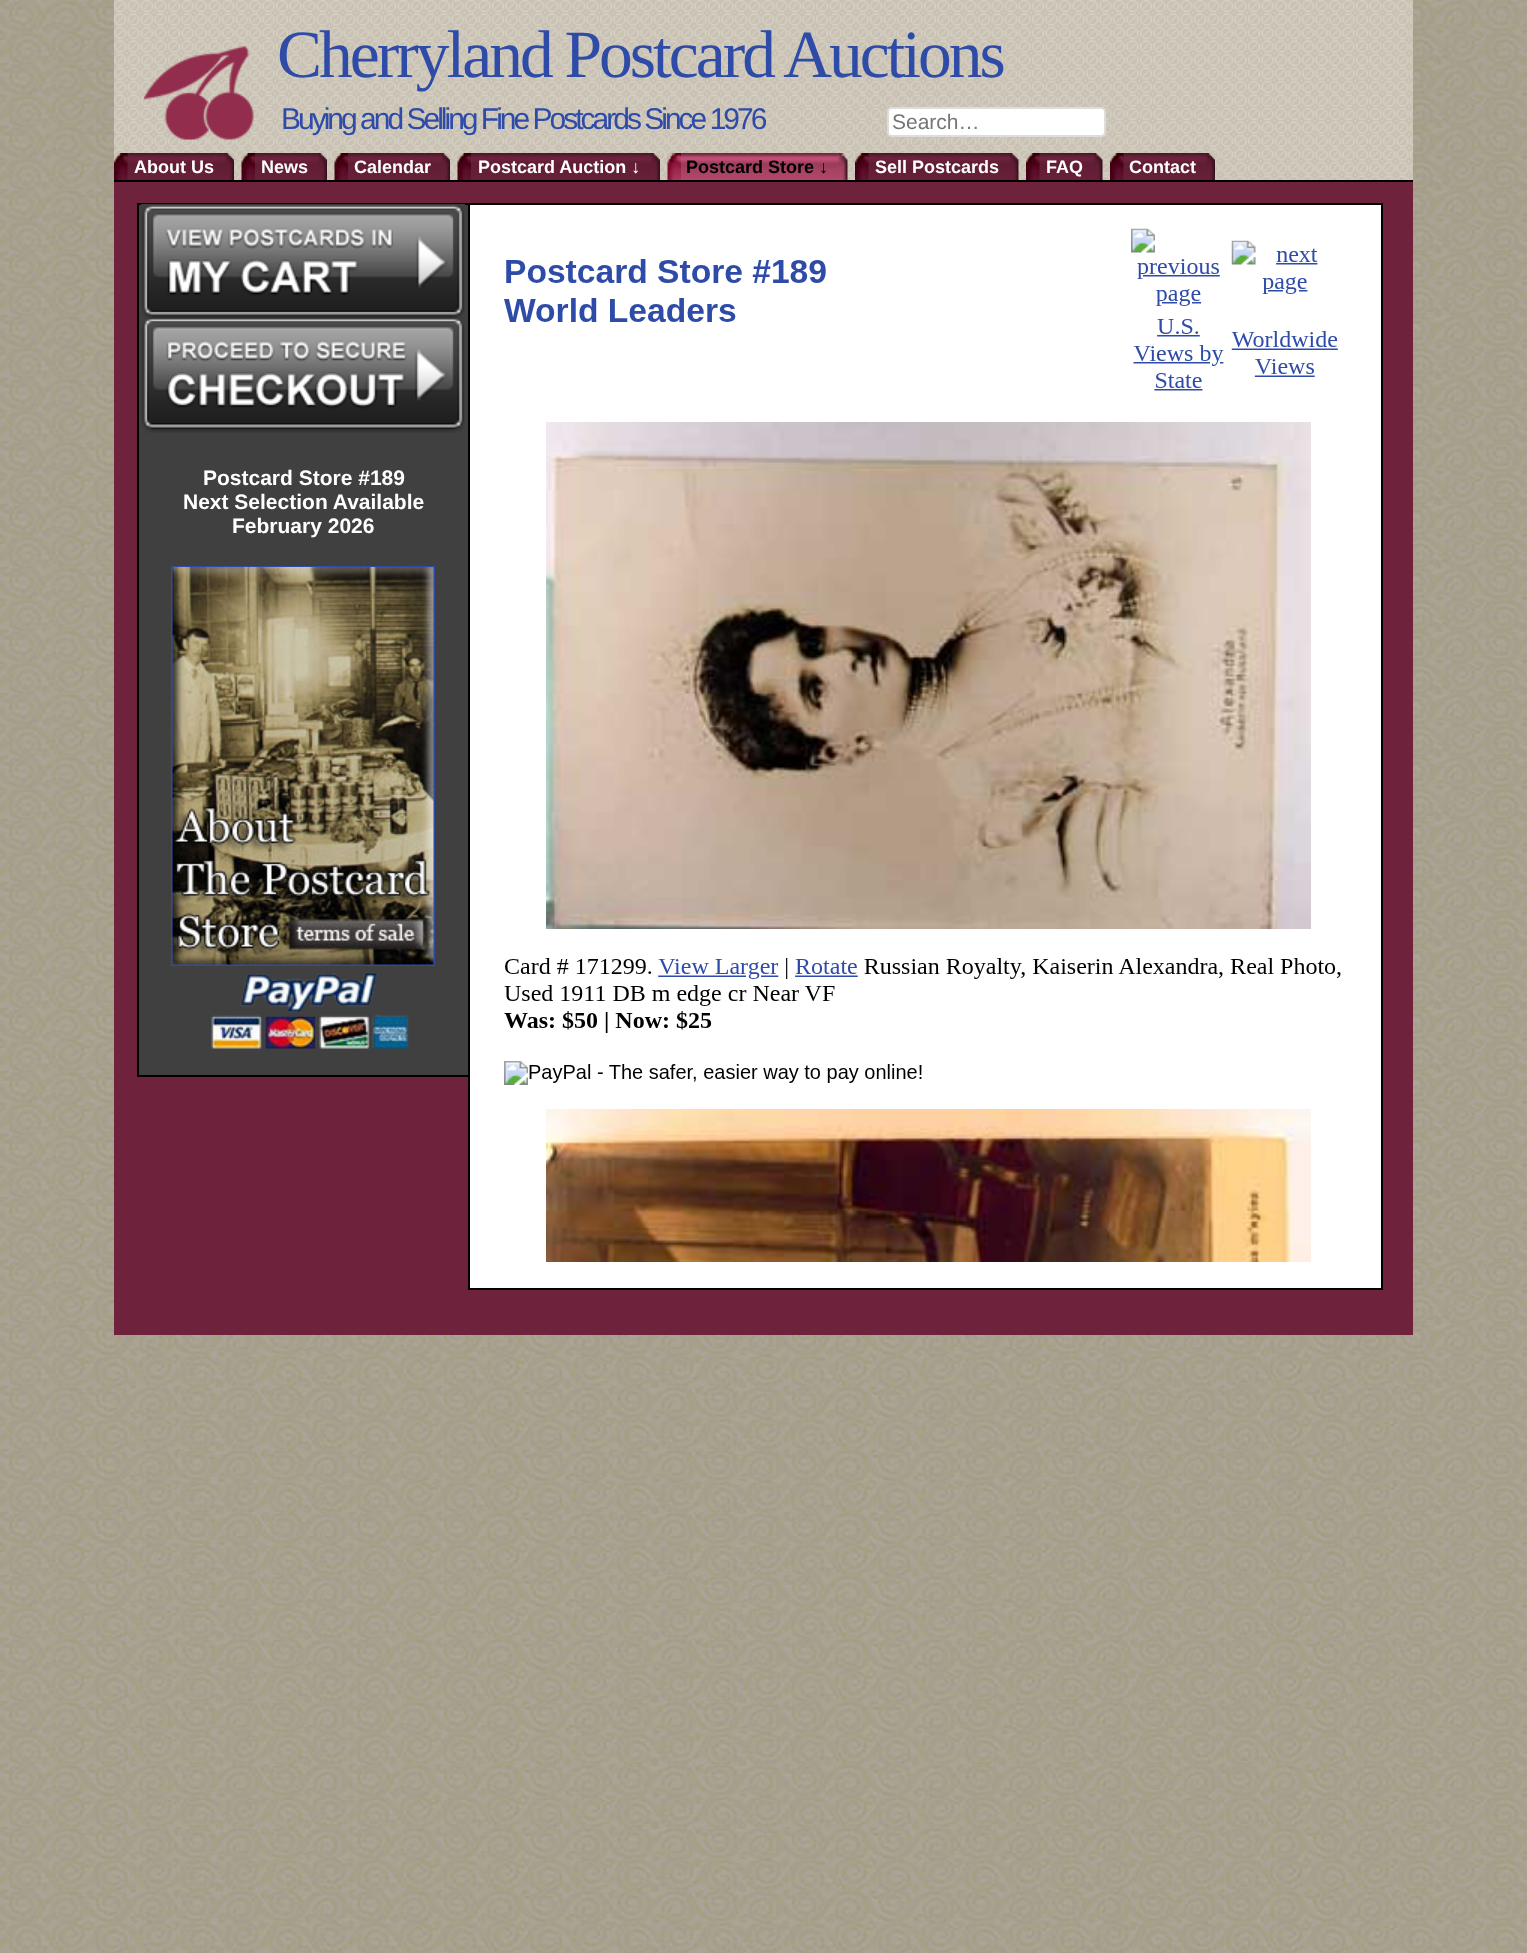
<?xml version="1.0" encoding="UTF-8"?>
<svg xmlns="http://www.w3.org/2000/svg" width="1527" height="1953">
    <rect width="100%" height="100%" fill="#FFFFFF"/>
    <image x="0" y="0" width="1527" height="1953" href="img_01.png"/>
    <image x="114" y="0" width="1299" height="180" href="img_02.png"/>
    <image x="144" y="46" width="110" height="94" href="img_03.png"/>
    <text x="277" y="77" font-family="Liberation Serif" font-size="67.5" letter-spacing="-3" fill="#2E4BA8">Cherryland Postcard Auctions</text>
    <text x="281" y="129" font-family="Liberation Sans" font-size="30" letter-spacing="-3" fill="#2E4BA8">Buying and Selling Fine Postcards Since 1976</text>
    <rect x="888" y="108" width="217" height="28" rx="4" fill="#FFFFFF" stroke="#DDDDDD" stroke-width="2"/>
    <text x="892" y="129" font-family="Liberation Sans" font-size="21" fill="#757575">Search…</text>
    <rect x="114" y="180" width="1299" height="2" fill="#000000"/>
    <image x="114" y="153" width="14" height="27" href="img_04.png"/>
    <image x="127" y="153" width="107" height="27" href="img_05.png"/>
    <text x="134" y="173" font-family="Liberation Sans" font-size="18" font-weight="700" fill="#FFFFFF">About Us</text>
    <image x="241" y="153" width="14" height="27" href="img_06.png"/>
    <image x="255" y="153" width="72" height="27" href="img_07.png"/>
    <text x="261" y="173" font-family="Liberation Sans" font-size="18" font-weight="700" fill="#FFFFFF">News</text>
    <image x="334" y="153" width="14" height="27" href="img_08.png"/>
    <image x="348" y="153" width="102" height="27" href="img_09.png"/>
    <text x="354" y="173" font-family="Liberation Sans" font-size="18" font-weight="700" fill="#FFFFFF">Calendar</text>
    <image x="457" y="153" width="14" height="27" href="img_06.png"/>
    <image x="471" y="153" width="189" height="27" href="img_10.png"/>
    <text x="478" y="173" font-family="Liberation Sans" font-size="18" font-weight="700" fill="#FFFFFF">Postcard Auction ↓</text>
    <image x="667" y="153" width="14" height="27" href="img_11.png"/>
    <image x="681" y="153" width="167" height="27" href="img_12.png"/>
    <text x="686" y="173" font-family="Liberation Sans" font-size="18" font-weight="700" fill="#000000">Postcard Store ↓</text>
    <image x="855" y="153" width="14" height="27" href="img_04.png"/>
    <image x="868" y="153" width="151" height="27" href="img_13.png"/>
    <text x="875" y="173" font-family="Liberation Sans" font-size="18" font-weight="700" fill="#FFFFFF">Sell Postcards</text>
    <image x="1026" y="153" width="14" height="27" href="img_14.png"/>
    <image x="1039" y="153" width="64" height="27" href="img_15.png"/>
    <text x="1046" y="173" font-family="Liberation Sans" font-size="18" font-weight="700" fill="#FFFFFF">FAQ</text>
    <image x="1110" y="153" width="14" height="27" href="img_14.png"/>
    <image x="1123" y="153" width="92" height="27" href="img_16.png"/>
    <text x="1129" y="173" font-family="Liberation Sans" font-size="18" font-weight="700" fill="#FFFFFF">Contact</text>
    <rect x="114" y="182" width="1299" height="1153" fill="#6F223C"/>
    <rect x="469" y="204" width="913" height="1085" fill="#FFFFFF" stroke="#000000" stroke-width="2"/>
    <rect x="138" y="204" width="331" height="872" fill="#404040" stroke="#000000" stroke-width="2"/>
    <image x="141" y="204" width="324" height="229" href="img_17.png"/>
    <text x="203" y="485" font-family="Liberation Sans" font-size="21" font-weight="700" fill="#FFFFFF">Postcard Store #189</text>
    <text x="183" y="509" font-family="Liberation Sans" font-size="21" font-weight="700" fill="#FFFFFF">Next Selection Available</text>
    <text x="232" y="533" font-family="Liberation Sans" font-size="21" font-weight="700" fill="#FFFFFF">February 2026</text>
    <rect x="172" y="567" width="262" height="398" fill="none" stroke="#2E4BA8" stroke-width="2"/>
    <image x="172" y="567" width="262" height="398" href="img_18.png"/>
    <image x="211" y="972" width="198" height="77" href="img_19.png"/>
    <image x="504" y="228" width="837" height="1034" href="img_20.png"/>
</svg>
